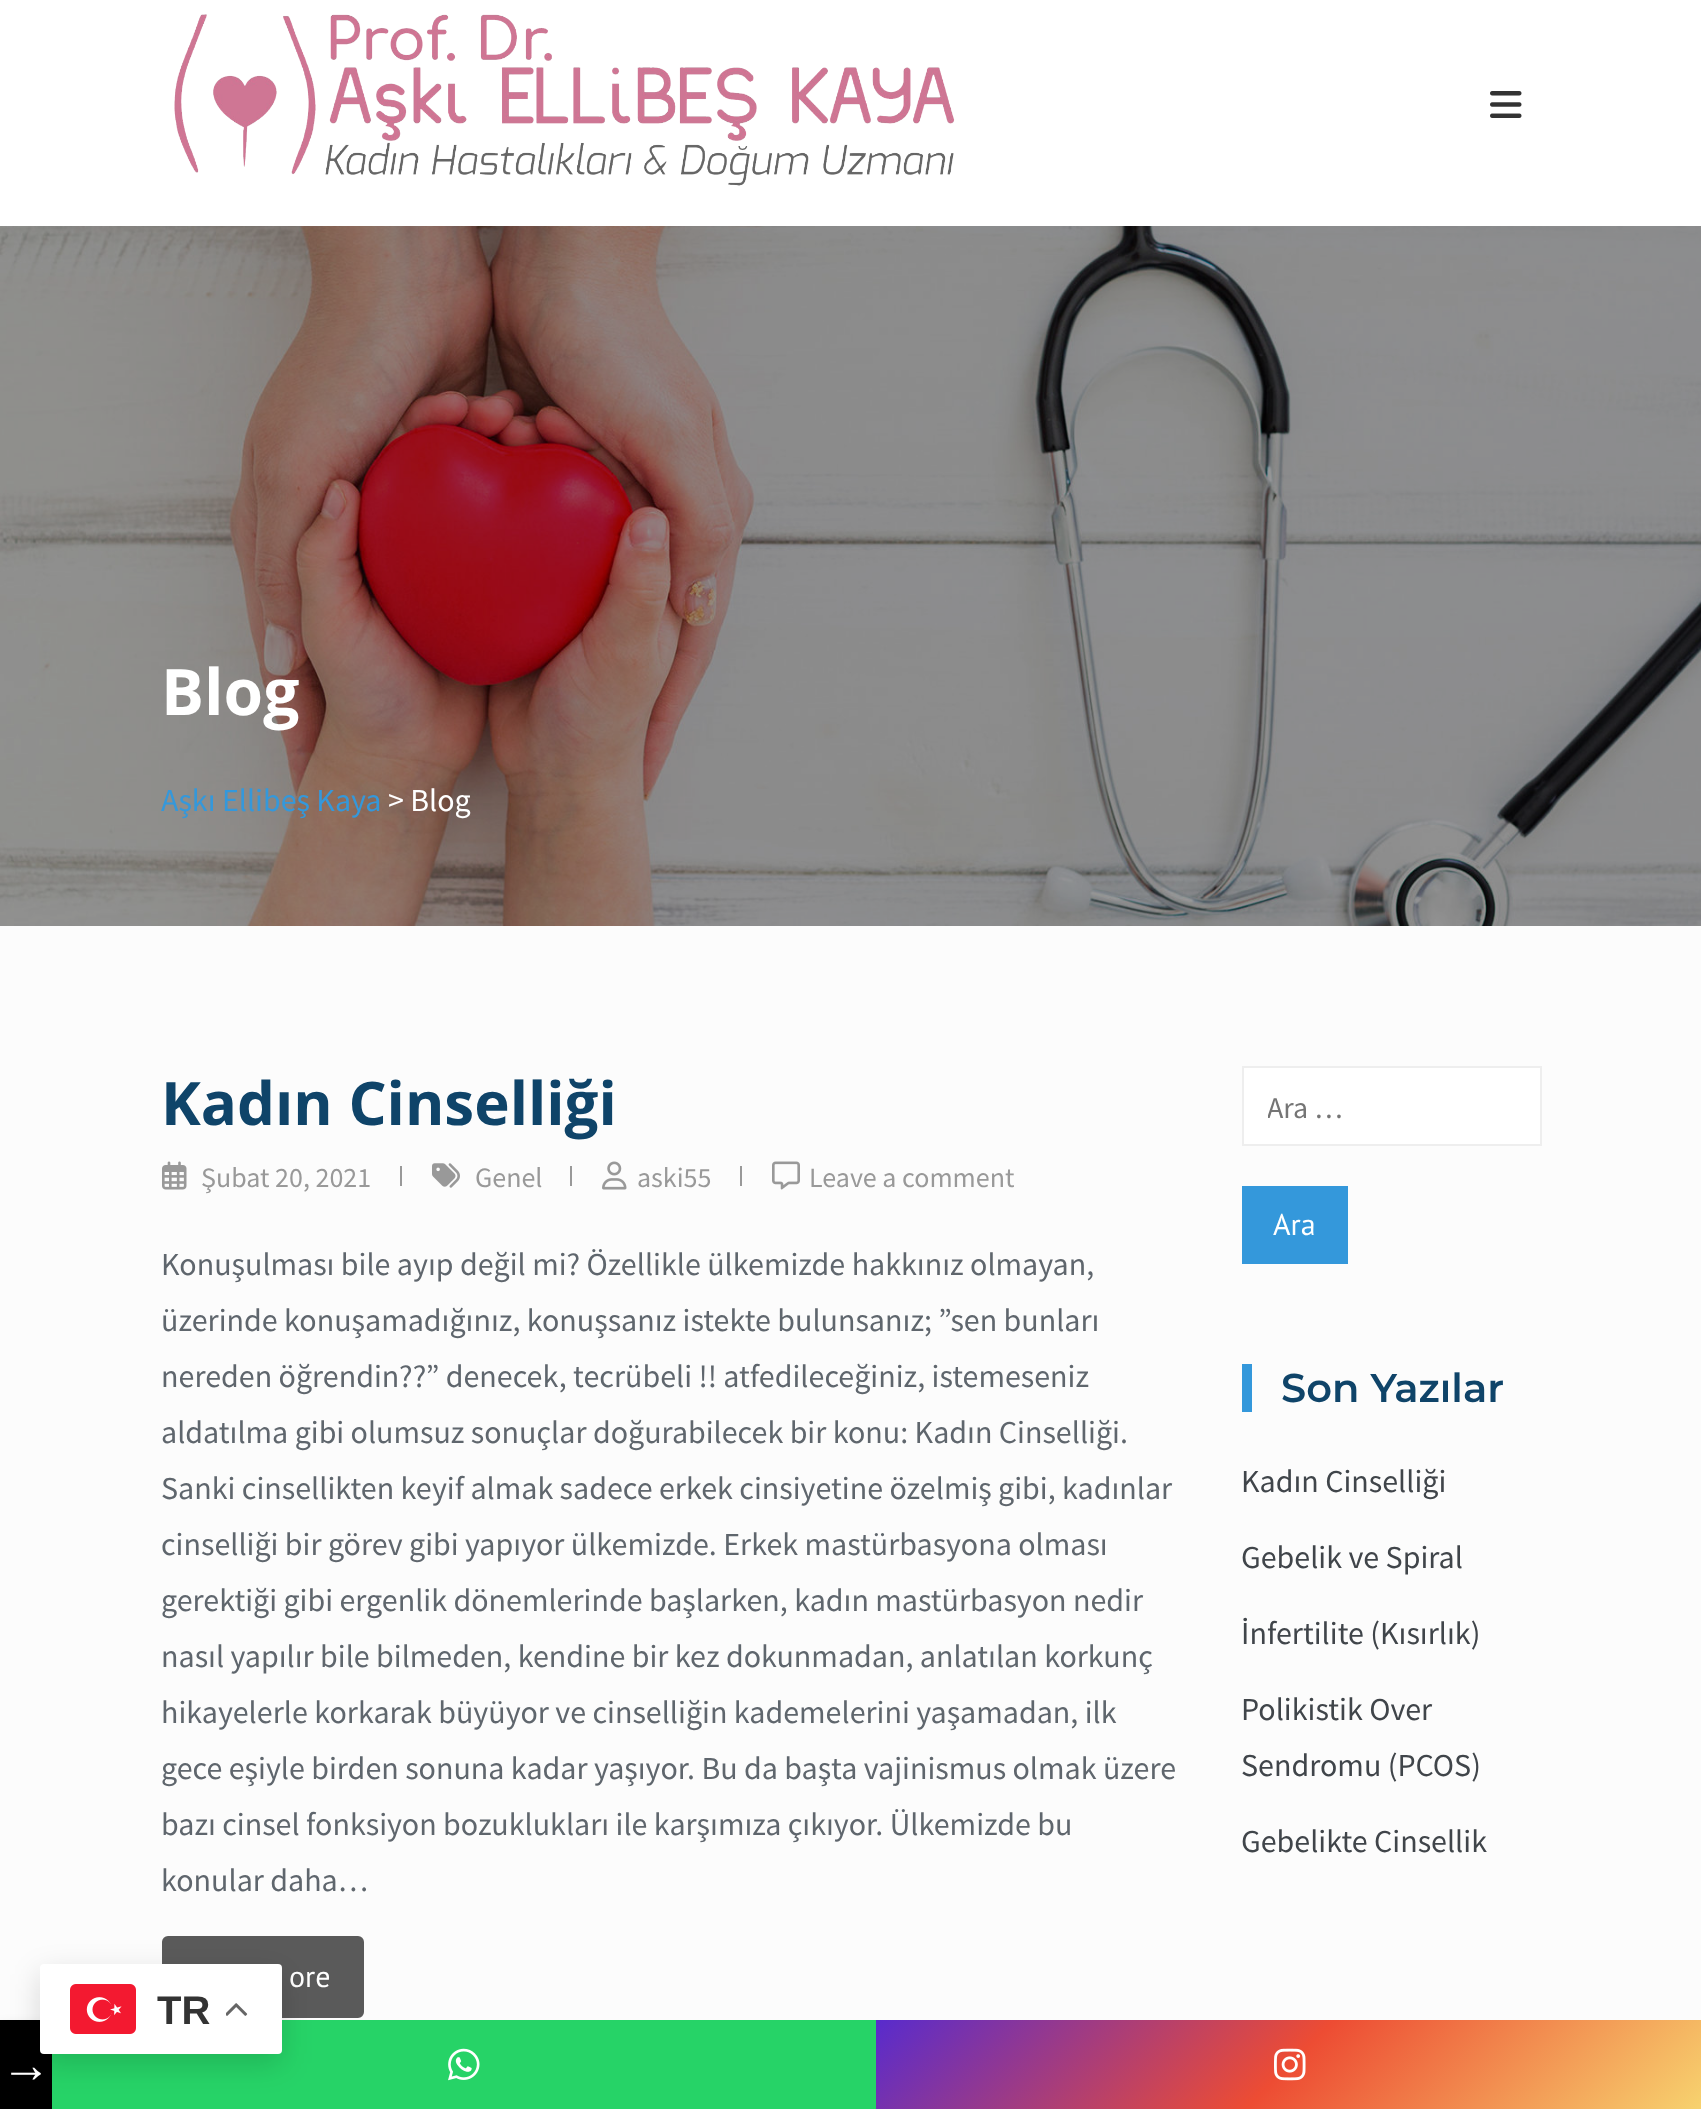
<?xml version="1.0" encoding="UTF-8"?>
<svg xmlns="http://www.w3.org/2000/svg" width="1701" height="2109">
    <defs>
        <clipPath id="clip1"><rect x="1268" y="1088" width="220" height="38"/></clipPath>
        <filter id="blur1" x="-50%" y="-200%" width="200%" height="500%"><feGaussianBlur stdDeviation="6"/></filter>
        <filter id="blur2" x="-50%" y="-200%" width="200%" height="500%"><feGaussianBlur stdDeviation="15"/></filter>
        <linearGradient id="g1" gradientUnits="userSpaceOnUse" x1="1060" y1="1836" x2="1518" y2="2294"><stop offset="0" stop-color="#582BCD"/><stop offset="0.5" stop-color="#ED4C33"/><stop offset="1" stop-color="#F7D36F"/></linearGradient>
    </defs>
    <rect width="100%" height="100%" fill="#FFFFFF"/>
    <image x="174" y="14" width="781" height="172" href="img_01.png"/>
    <image x="1490" y="91" width="32" height="27" href="img_02.png"/>
    <rect x="0" y="926" width="1701" height="1094" fill="#FCFCFC"/>
    <image x="0" y="226" width="1701" height="700" href="img_03.png"/>
    <text x="161" y="715" font-family="Open Sans" font-size="64" font-weight="700" fill="#FFFFFF">Blog</text>
    <text x="161" y="811" font-family="Source Sans Pro" font-size="32" fill="#3498DB">Aşkı Ellibeş Kaya</text>
    <text x="388" y="811" font-family="Source Sans Pro" font-size="32" fill="#FFFFFF">&gt; Blog</text>
    <text x="161" y="1125" font-family="Open Sans" font-size="60" font-weight="700" fill="#0F4469">Kadın Cinselliği</text>
    <image x="162" y="1161" width="25" height="29" href="img_04.png"/>
    <text x="201" y="1187" font-family="Source Sans Pro" font-size="28" fill="#999999">Şubat 20, 2021</text>
    <rect x="400" y="1166" width="2" height="20" fill="#999999"/>
    <image x="432" y="1163" width="28" height="25" href="img_05.png"/>
    <text x="475" y="1187" font-family="Source Sans Pro" font-size="28" fill="#999999">Genel</text>
    <rect x="570" y="1166" width="2" height="20" fill="#999999"/>
    <image x="602" y="1161" width="25" height="29" href="img_06.png"/>
    <text x="637" y="1187" font-family="Source Sans Pro" font-size="28" fill="#999999">aski55</text>
    <rect x="740" y="1166" width="2" height="20" fill="#999999"/>
    <image x="772" y="1161" width="28" height="29" href="img_07.png"/>
    <text x="809" y="1187" font-family="Source Sans Pro" font-size="28" fill="#999999">Leave a comment</text>
    <text font-family="Source Sans Pro" font-size="32" fill="#5F666D">
        <tspan x="161" y="1275">Konuşulması bile ayıp değil mi? Özellikle ülkemizde hakkınız olmayan,</tspan>
        <tspan x="161" y="1331">üzerinde konuşamadığınız, konuşsanız istekte bulunsanız; ”sen bunları</tspan>
        <tspan x="161" y="1387">nereden öğrendin??” denecek, tecrübeli !! atfedileceğiniz, istemeseniz</tspan>
        <tspan x="161" y="1443">aldatılma gibi olumsuz sonuçlar doğurabilecek bir konu: Kadın Cinselliği.</tspan>
        <tspan x="161" y="1499">Sanki cinsellikten keyif almak sadece erkek cinsiyetine özelmiş gibi, kadınlar</tspan>
        <tspan x="161" y="1555">cinselliği bir görev gibi yapıyor ülkemizde. Erkek mastürbasyona olması</tspan>
        <tspan x="161" y="1611">gerektiği gibi ergenlik dönemlerinde başlarken, kadın mastürbasyon nedir</tspan>
        <tspan x="161" y="1667">nasıl yapılır bile bilmeden, kendine bir kez dokunmadan, anlatılan korkunç</tspan>
        <tspan x="161" y="1723">hikayelerle korkarak büyüyor ve cinselliğin kademelerini yaşamadan, ilk</tspan>
        <tspan x="161" y="1779">gece eşiyle birden sonuna kadar yaşıyor. Bu da başta vajinismus olmak üzere</tspan>
        <tspan x="161" y="1835">bazı cinsel fonksiyon bozuklukları ile karşımıza çıkıyor. Ülkemizde bu</tspan>
        <tspan x="161" y="1891">konular daha…</tspan>
    </text>
    <rect x="163" y="1937" width="200" height="80" rx="5" fill="#5A5A5A" stroke="#5A5A5A" stroke-width="2"/>
    <text x="289" y="1987" font-family="PT Sans" font-size="30" fill="#FFFFFF">ore</text>
    <rect x="1243" y="1067" width="298" height="78" fill="#FFFFFF" stroke="#EEEEEE" stroke-width="2"/>
    <g clip-path="url(#clip1)">
        <text x="1267" y="1118" font-family="Source Sans Pro" font-size="30" fill="#757575">Ara …</text>
    </g>
    <rect x="1242" y="1186" width="106" height="78" fill="#3498DB"/>
    <text x="1273" y="1235" font-family="PT Sans" font-size="30" fill="#FFFFFF">Ara</text>
    <rect x="1242" y="1364" width="10" height="48" fill="#3498DB"/>
    <text x="1281" y="1402" font-family="Montserrat" font-size="40" font-weight="100" fill="#0F4469">Son Yazılar</text>
    <text x="1241" y="1492" font-family="Source Sans Pro" font-size="32" fill="#40454A">Kadın Cinselliği</text>
    <text x="1241" y="1568" font-family="Source Sans Pro" font-size="32" fill="#40454A">Gebelik ve Spiral</text>
    <text x="1241" y="1644" font-family="Source Sans Pro" font-size="32" fill="#40454A">İnfertilite (Kısırlık)</text>
    <text font-family="Source Sans Pro" font-size="32" fill="#40454A">
        <tspan x="1241" y="1720">Polikistik Over</tspan>
        <tspan x="1241" y="1776">Sendromu (PCOS)</tspan>
    </text>
    <text x="1241" y="1852" font-family="Source Sans Pro" font-size="32" fill="#40454A">Gebelikte Cinsellik</text>
    <rect x="0" y="2026" width="52" height="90" fill="#000000" fill-opacity="0.16" filter="url(#blur1)"/>
    <rect x="0" y="2020" width="52" height="89" fill="#000000"/>
    <rect x="52" y="2020" width="824" height="89" fill="#26D367"/>
    <rect x="40" y="1974" width="242" height="90" rx="4" fill="#000000" fill-opacity="0.15" filter="url(#blur2)"/>
    <rect x="40" y="1964" width="242" height="90" rx="4" fill="#FFFFFF"/>
    <image x="70" y="1984" width="66" height="50" href="img_08.png"/>
    <text x="157" y="2024" font-family="Liberation Sans" font-size="40" font-weight="700" fill="#333333">TR</text>
    <image x="226" y="2003" width="22" height="13" href="img_09.png"/>
    <text x="1" y="2082" font-family="Liberation Serif" font-size="50" fill="#FFFFFF">→</text>
    <image x="448" y="2048" width="32" height="33" href="img_10.png"/>
    <rect x="876" y="2020" width="825" height="89" fill="url(#g1)"/>
    <image x="1274" y="2048" width="32" height="33" href="img_11.png"/>
</svg>
